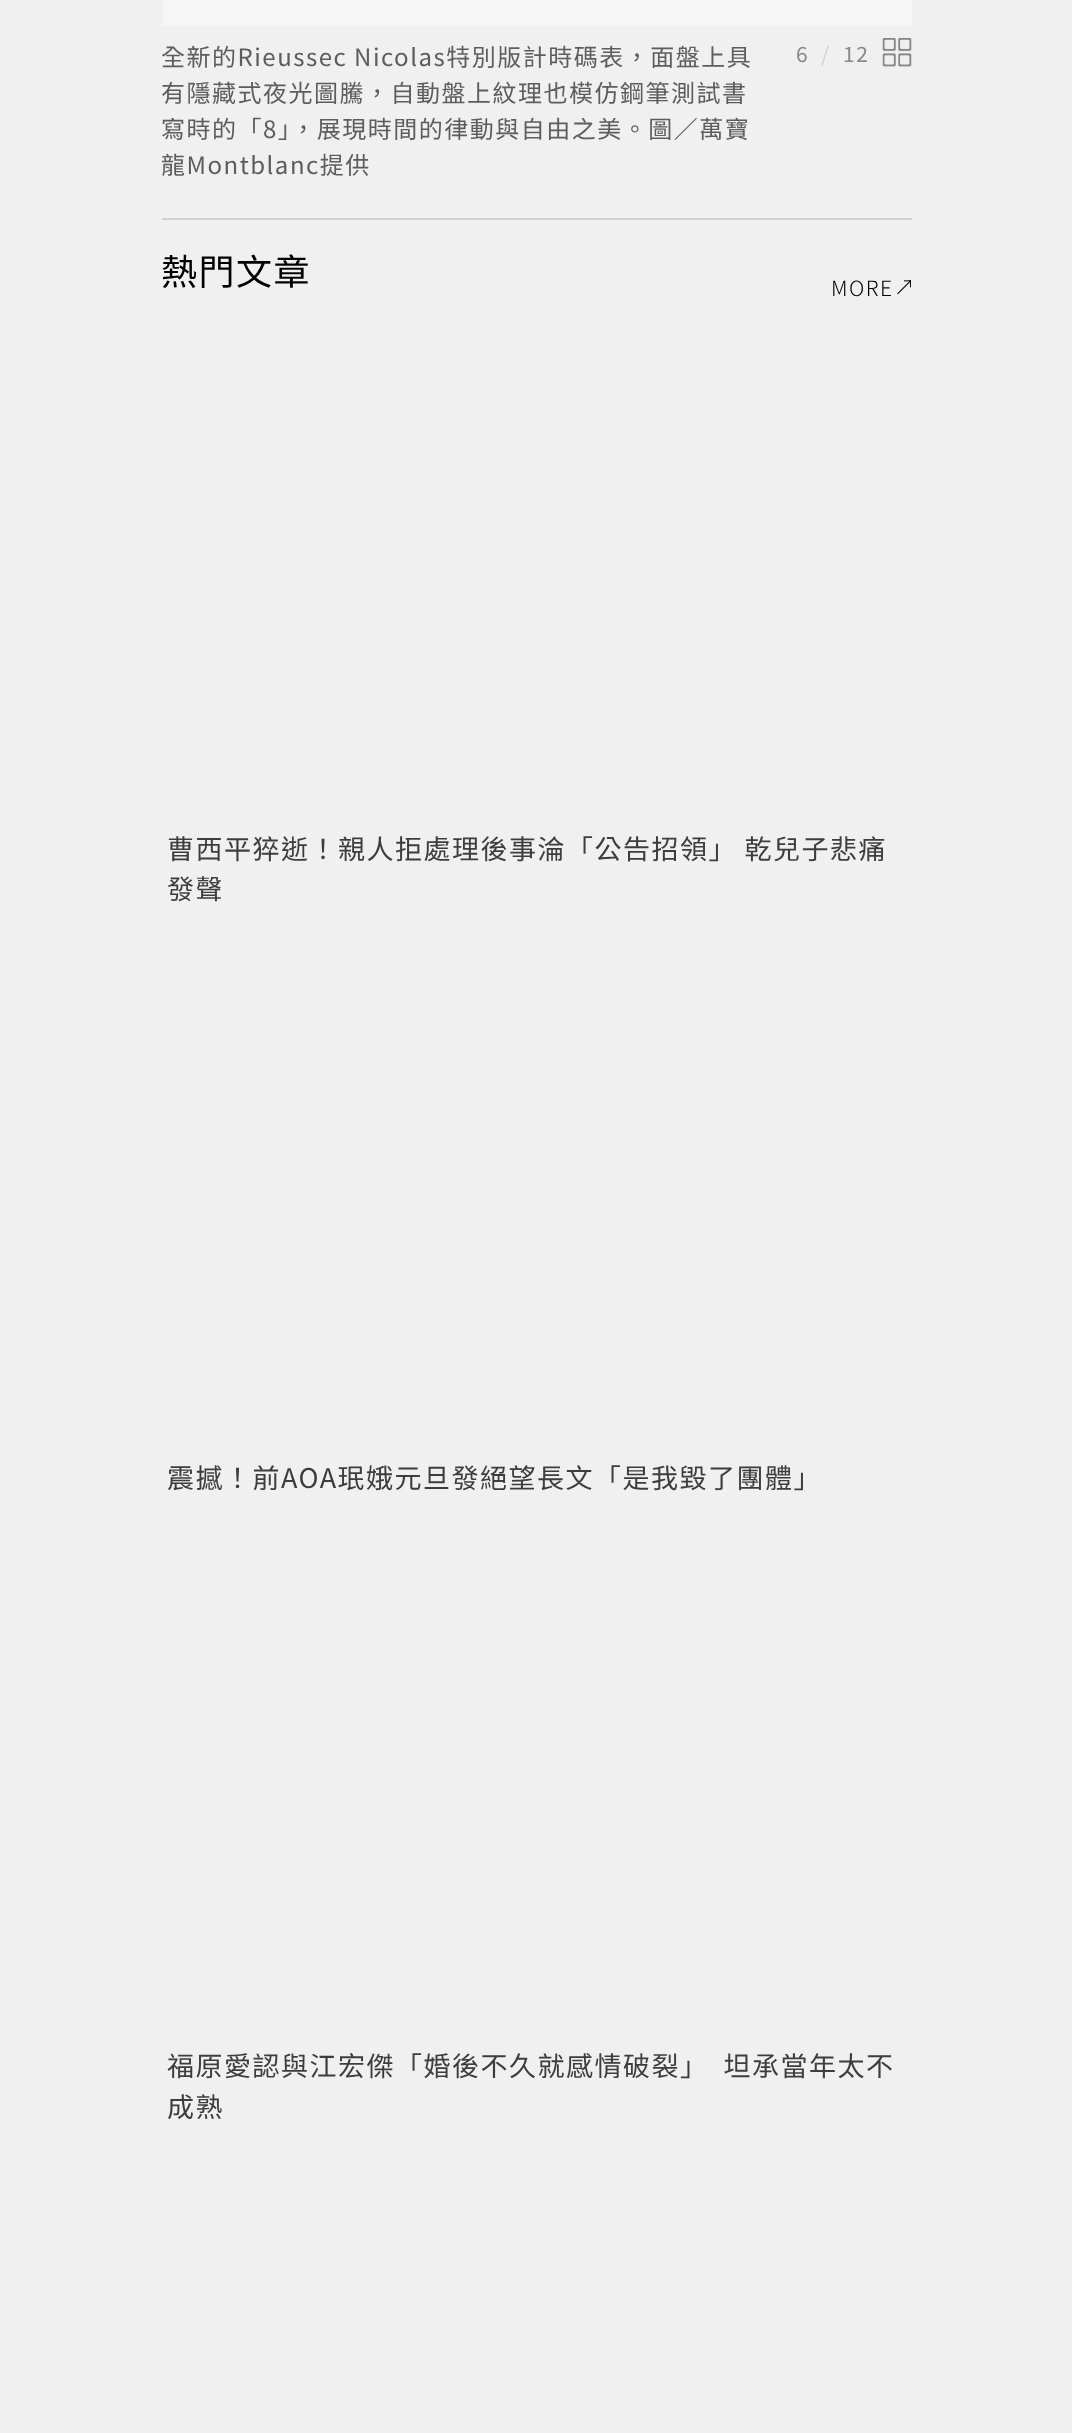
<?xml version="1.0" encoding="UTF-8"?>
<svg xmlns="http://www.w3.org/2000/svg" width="1072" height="2433">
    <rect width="100%" height="100%" fill="#F0F0F0"/>
    <rect x="162" y="0" width="750" height="26" fill="#F6F6F6"/>
    <text font-family="Noto Sans TC" font-size="24" letter-spacing="1.5" fill="#5D5D5D">
        <tspan x="161" y="66">全新的Rieussec Nicolas特別版計時碼表，面盤上具</tspan>
        <tspan x="161" y="102">有隱藏式夜光圖騰，自動盤上紋理也模仿鋼筆測試書</tspan>
        <tspan x="161" y="138">寫時的「8」，展現時間的律動與自由之美。圖／萬寶</tspan>
        <tspan x="161" y="174">龍Montblanc提供</tspan>
    </text>
    <text x="796" y="62" font-family="Noto Sans TC" font-size="21" letter-spacing="1.5" fill="#888888">6</text>
    <text x="821" y="62" font-family="Noto Sans TC" font-size="21" letter-spacing="1.5" fill="#D1D1D1">/</text>
    <text x="843" y="62" font-family="Noto Sans TC" font-size="21" letter-spacing="1.5" fill="#888888">12</text>
    <image x="882" y="38" width="30" height="29" href="img_01.png"/>
    <rect x="162" y="218" width="750" height="2" fill="#D1D1D1"/>
    <text x="161" y="285" font-family="Noto Sans TC" font-size="36" letter-spacing="1.5" fill="#000000">熱門文章</text>
    <text x="831" y="296" font-family="Noto Sans TC" font-size="21" font-weight="300" letter-spacing="1.5" fill="#000000">MORE</text>
    <image x="897" y="280" width="14" height="15" href="img_02.png"/>
    <text font-family="Noto Sans TC" font-size="27" letter-spacing="1.5" fill="#3D3D3D">
        <tspan x="167" y="859">曹西平猝逝！親人拒處理後事淪「公告招領」 乾兒子悲痛</tspan>
        <tspan x="167" y="899">發聲</tspan>
    </text>
    <text x="167" y="1488" font-family="Noto Sans TC" font-size="27" letter-spacing="1.5" fill="#3D3D3D">震撼！前AOA珉娥元旦發絕望長文「是我毀了團體」</text>
    <text font-family="Noto Sans TC" font-size="27" letter-spacing="1.5" fill="#3D3D3D">
        <tspan x="167" y="2076">福原愛認與江宏傑「婚後不久就感情破裂」　坦承當年太不</tspan>
        <tspan x="167" y="2117">成熟</tspan>
    </text>
</svg>
